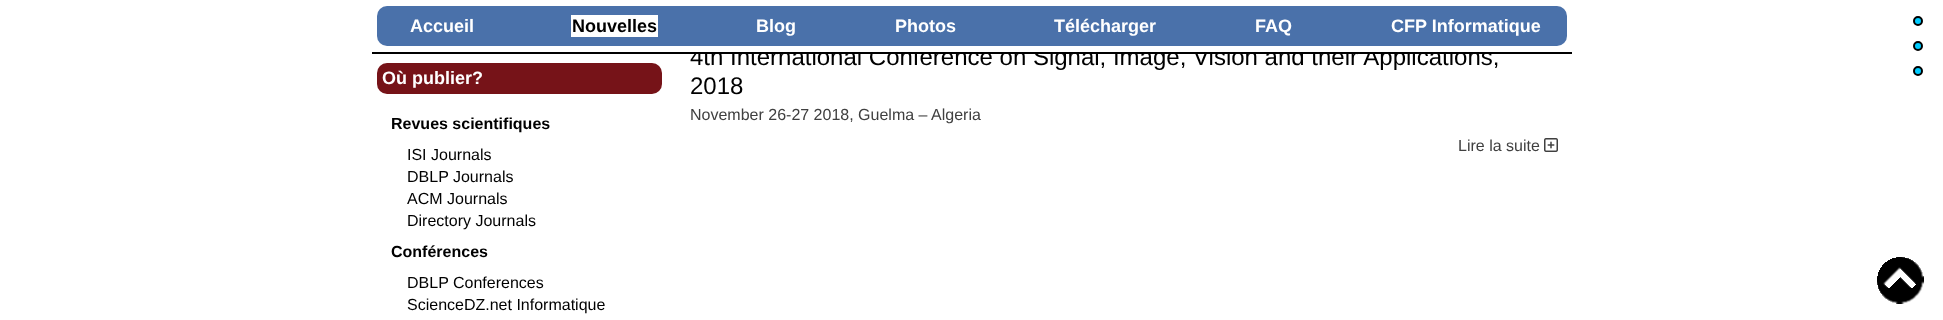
<?xml version="1.0" encoding="UTF-8"?>
<svg xmlns="http://www.w3.org/2000/svg" width="1943" height="320">
    <rect width="100%" height="100%" fill="#FFFFFF"/>
    <text x="690" y="65" font-family="Liberation Sans" font-size="24" fill="#000000">4th International Conference on Signal, Image, Vision and their Applications,</text>
    <rect x="695" y="47" width="758" height="5" fill="#FFFFFF"/>
    <rect x="372" y="52" width="1200" height="2" fill="#000000"/>
    <rect x="377" y="6" width="1190" height="40" rx="10" fill="#4A71AA"/>
    <text x="410" y="32" font-family="Liberation Sans" font-size="18" font-weight="700" fill="#FFFFFF">Accueil</text>
    <rect x="571" y="15" width="87" height="22" fill="#FFFFFF"/>
    <text x="572" y="32" font-family="Liberation Sans" font-size="18" font-weight="700" fill="#000000">Nouvelles</text>
    <text x="756" y="32" font-family="Liberation Sans" font-size="18" font-weight="700" fill="#FFFFFF">Blog</text>
    <text x="895" y="32" font-family="Liberation Sans" font-size="18" font-weight="700" fill="#FFFFFF">Photos</text>
    <text x="1054" y="32" font-family="Liberation Sans" font-size="18" font-weight="700" fill="#FFFFFF">Télécharger</text>
    <text x="1255" y="32" font-family="Liberation Sans" font-size="18" font-weight="700" fill="#FFFFFF">FAQ</text>
    <text x="1391" y="32" font-family="Liberation Sans" font-size="18" font-weight="700" fill="#FFFFFF">CFP Informatique</text>
    <circle cx="1918" cy="21" r="4" fill="#00CCFF" stroke="#000000" stroke-width="2"/>
    <circle cx="1918" cy="46" r="4" fill="#00CCFF" stroke="#000000" stroke-width="2"/>
    <circle cx="1918" cy="71" r="4" fill="#00CCFF" stroke="#000000" stroke-width="2"/>
    <rect x="377" y="63" width="285" height="31" rx="10" fill="#761318"/>
    <text x="382" y="84" font-family="Liberation Sans" font-size="18" font-weight="700" fill="#FFFFFF">Où publier?</text>
    <text x="391" y="129" font-family="Liberation Sans" font-size="16" font-weight="700" fill="#000000">Revues scientifiques</text>
    <text font-family="Liberation Sans" font-size="16" fill="#000000">
        <tspan x="407" y="160">ISI Journals</tspan>
        <tspan x="407" y="182">DBLP Journals</tspan>
        <tspan x="407" y="204">ACM Journals</tspan>
        <tspan x="407" y="226">Directory Journals</tspan>
    </text>
    <text x="391" y="257" font-family="Liberation Sans" font-size="16" font-weight="700" fill="#000000">Conférences</text>
    <text font-family="Liberation Sans" font-size="16" fill="#000000">
        <tspan x="407" y="288">DBLP Conferences</tspan>
        <tspan x="407" y="310">ScienceDZ.net Informatique</tspan>
    </text>
    <text x="690" y="94" font-family="Liberation Sans" font-size="24" fill="#000000">2018</text>
    <text x="690" y="120" font-family="Liberation Sans" font-size="16" fill="#404040">November 26-27 2018, Guelma – Algeria</text>
    <text x="1458" y="151" font-family="Liberation Sans" font-size="16" fill="#404040">Lire la suite</text>
    <image x="1544" y="138" width="14" height="14" href="img_01.png"/>
    <image x="1877" y="257" width="47" height="47" href="img_02.png"/>
</svg>
